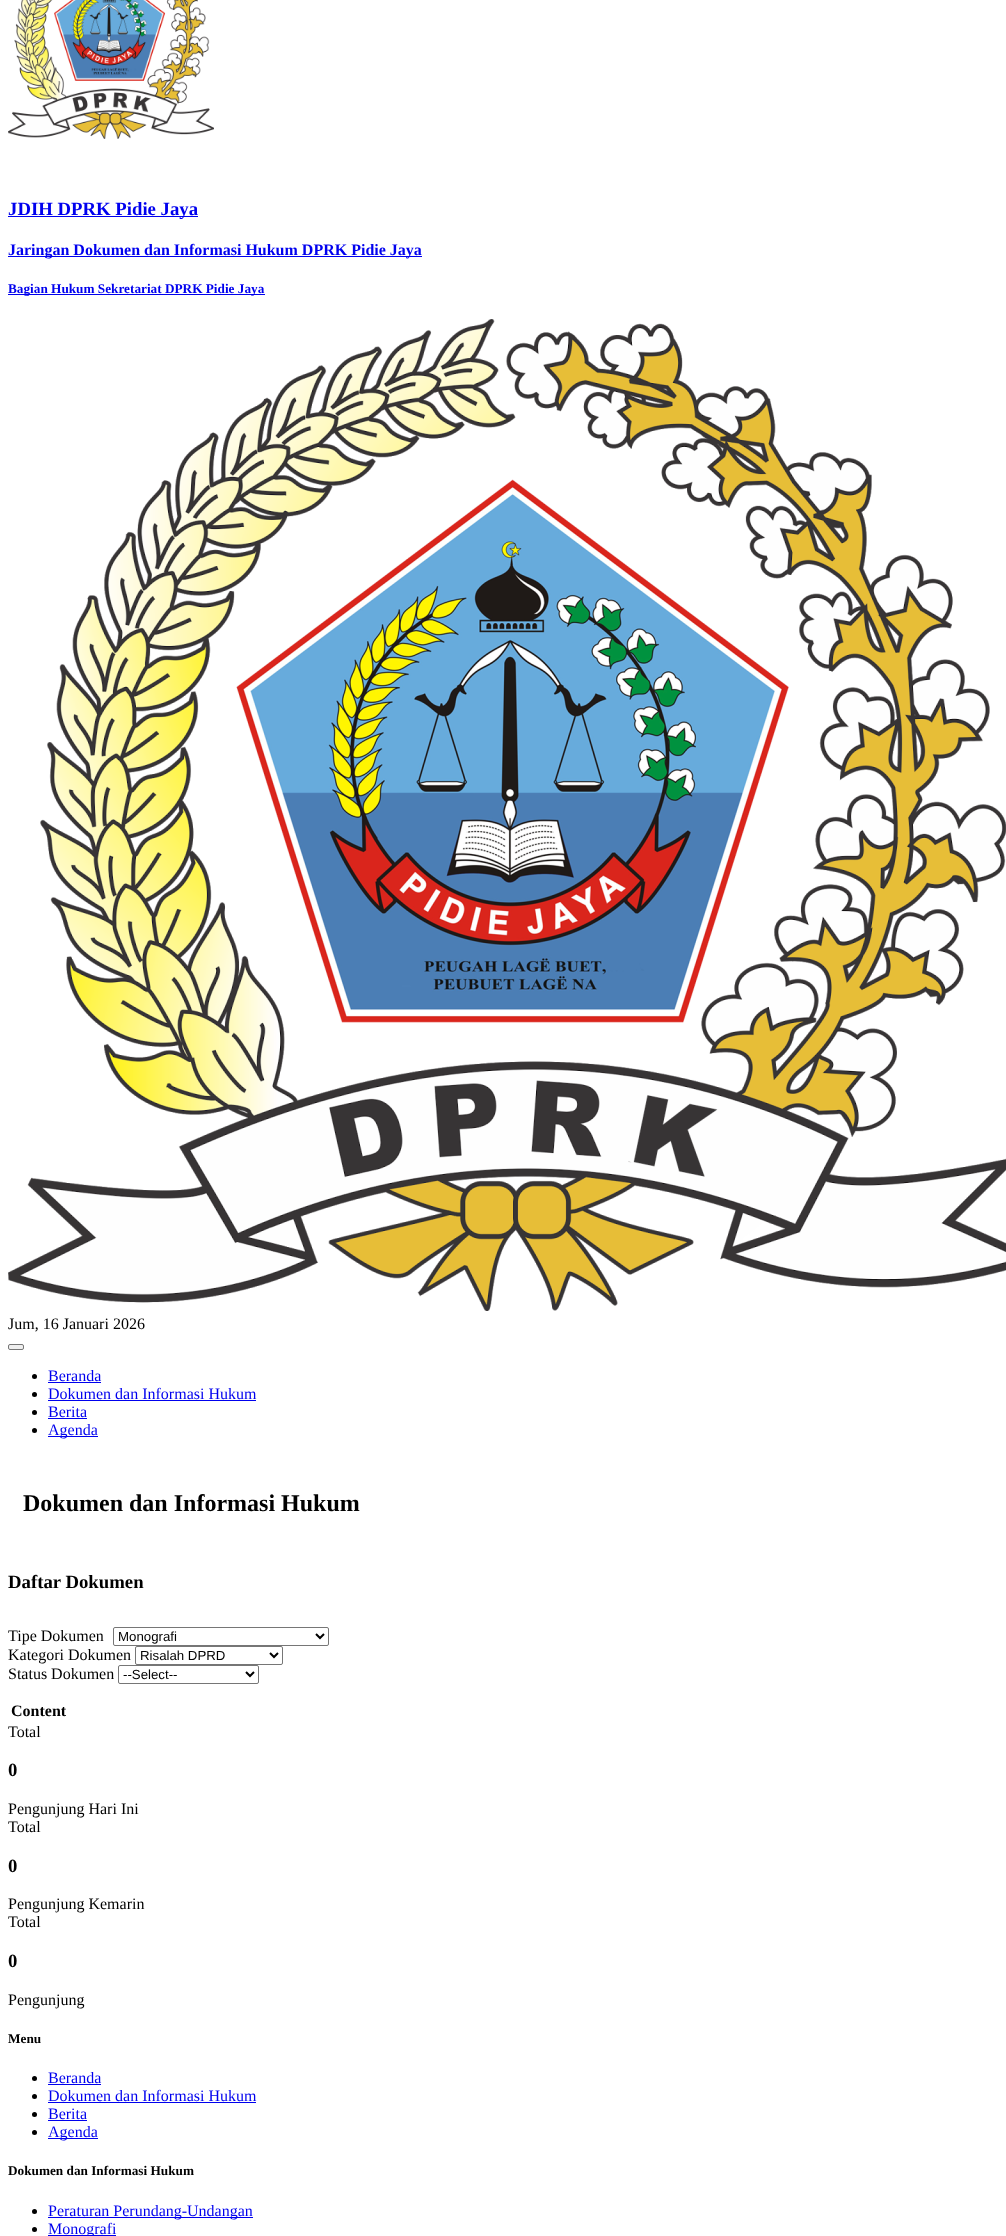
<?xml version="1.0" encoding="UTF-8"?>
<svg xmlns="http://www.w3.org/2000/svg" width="1006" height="2236">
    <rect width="100%" height="100%" fill="#FFFFFF"/>
    <image x="8" y="0" width="206" height="139" href="img_01.png"/>
    <rect x="8" y="216" width="190" height="1" fill="#0000EE"/>
    <text x="8" y="215" font-family="Liberation Serif" font-size="18.75" font-weight="700" fill="#0000EE">JDIH DPRK Pidie Jaya</text>
    <rect x="8" y="256" width="414" height="1" fill="#0000EE"/>
    <text x="8" y="255" font-family="Liberation Serif" font-size="16" font-weight="700" fill="#0000EE">Jaringan Dokumen dan Informasi Hukum DPRK Pidie Jaya</text>
    <rect x="8" y="294" width="257" height="1" fill="#0000EE"/>
    <text x="8" y="293" font-family="Liberation Serif" font-size="13.25" font-weight="700" fill="#0000EE">Bagian Hukum Sekretariat DPRK Pidie Jaya</text>
    <image x="8" y="319" width="998" height="992" href="img_02.png"/>
    <text x="8" y="1329" font-family="Liberation Serif" font-size="16" fill="#000000">Jum, 16 Januari 2026</text>
    <rect x="8.5" y="1344.5" width="15" height="5" rx="1.5" fill="#EFEFEF" stroke="#767676"/>
    <circle cx="34.5" cy="1376.5" r="2.5" fill="#000000"/>
    <text x="48" y="1381" font-family="Liberation Serif" font-size="16" fill="#0000EE">Beranda</text>
    <rect x="48" y="1382" width="53" height="1" fill="#0000EE"/>
    <circle cx="34.5" cy="1394.5" r="2.5" fill="#000000"/>
    <text x="48" y="1399" font-family="Liberation Serif" font-size="16" fill="#0000EE">Dokumen dan Informasi Hukum</text>
    <rect x="48" y="1400" width="208" height="1" fill="#0000EE"/>
    <circle cx="34.5" cy="1412.5" r="2.5" fill="#000000"/>
    <text x="48" y="1417" font-family="Liberation Serif" font-size="16" fill="#0000EE">Berita</text>
    <rect x="48" y="1418" width="39" height="1" fill="#0000EE"/>
    <circle cx="34.5" cy="1430.5" r="2.5" fill="#000000"/>
    <rect x="48" y="1436" width="50" height="1" fill="#0000EE"/>
    <text x="48" y="1435" font-family="Liberation Serif" font-size="16" fill="#0000EE">Agenda</text>
    <text x="23" y="1511" font-family="Liberation Serif" font-size="24" font-weight="700" fill="#000000">Dokumen dan Informasi Hukum</text>
    <text x="8" y="1588" font-family="Liberation Serif" font-size="18.75" font-weight="700" fill="#000000">Daftar Dokumen</text>
    <text x="8" y="1641" font-family="Liberation Serif" font-size="16" fill="#000000">Tipe Dokumen</text>
    <rect x="113.5" y="1627.5" width="215" height="18" rx="1.5" fill="none" stroke="#767676"/>
    <path d="M 316 1634 L 320 1638 L 324 1634" fill="none" stroke="#000000" stroke-width="2"/>
    <text x="118" y="1641" font-family="Liberation Sans" font-size="13.25" fill="#000000">Monografi</text>
    <text x="8" y="1660" font-family="Liberation Serif" font-size="16" fill="#000000">Kategori Dokumen</text>
    <rect x="135.5" y="1646.5" width="147" height="18" rx="1.5" fill="none" stroke="#767676"/>
    <path d="M 270 1653 L 274 1657 L 278 1653" fill="none" stroke="#000000" stroke-width="2"/>
    <text x="140" y="1660" font-family="Liberation Sans" font-size="13.25" fill="#000000">Risalah DPRD</text>
    <text x="8" y="1679" font-family="Liberation Serif" font-size="16" fill="#000000">Status Dokumen</text>
    <rect x="118.5" y="1665.5" width="140" height="18" rx="1.5" fill="none" stroke="#767676"/>
    <path d="M 246 1672 L 250 1676 L 254 1672" fill="none" stroke="#000000" stroke-width="2"/>
    <text x="123" y="1679" font-family="Liberation Sans" font-size="13.25" fill="#000000">--Select--</text>
    <text x="11" y="1716" font-family="Liberation Serif" font-size="16" font-weight="700" fill="#000000">Content</text>
    <text x="8" y="1737" font-family="Liberation Serif" font-size="16" fill="#000000">Total</text>
    <text x="8" y="1776" font-family="Liberation Serif" font-size="18.75" font-weight="700" fill="#000000">0</text>
    <text font-family="Liberation Serif" font-size="16" fill="#000000">
        <tspan x="8" y="1814">Pengunjung Hari Ini</tspan>
        <tspan x="8" y="1832">Total</tspan>
    </text>
    <text x="8" y="1872" font-family="Liberation Serif" font-size="18.75" font-weight="700" fill="#000000">0</text>
    <text font-family="Liberation Serif" font-size="16" fill="#000000">
        <tspan x="8" y="1909">Pengunjung Kemarin</tspan>
        <tspan x="8" y="1927">Total</tspan>
    </text>
    <text x="8" y="1967" font-family="Liberation Serif" font-size="18.75" font-weight="700" fill="#000000">0</text>
    <text x="8" y="2005" font-family="Liberation Serif" font-size="16" fill="#000000">Pengunjung</text>
    <text x="8" y="2043" font-family="Liberation Serif" font-size="13.25" font-weight="700" fill="#000000">Menu</text>
    <circle cx="34.5" cy="2078.5" r="2.5" fill="#000000"/>
    <text x="48" y="2083" font-family="Liberation Serif" font-size="16" fill="#0000EE">Beranda</text>
    <rect x="48" y="2084" width="53" height="1" fill="#0000EE"/>
    <circle cx="34.5" cy="2096.5" r="2.5" fill="#000000"/>
    <text x="48" y="2101" font-family="Liberation Serif" font-size="16" fill="#0000EE">Dokumen dan Informasi Hukum</text>
    <rect x="48" y="2102" width="208" height="1" fill="#0000EE"/>
    <circle cx="34.5" cy="2114.5" r="2.5" fill="#000000"/>
    <text x="48" y="2119" font-family="Liberation Serif" font-size="16" fill="#0000EE">Berita</text>
    <rect x="48" y="2120" width="39" height="1" fill="#0000EE"/>
    <circle cx="34.5" cy="2132.5" r="2.5" fill="#000000"/>
    <rect x="48" y="2138" width="50" height="1" fill="#0000EE"/>
    <text x="48" y="2137" font-family="Liberation Serif" font-size="16" fill="#0000EE">Agenda</text>
    <text x="8" y="2175" font-family="Liberation Serif" font-size="13.25" font-weight="700" fill="#000000">Dokumen dan Informasi Hukum</text>
    <circle cx="34.5" cy="2211.5" r="2.5" fill="#000000"/>
    <rect x="48" y="2217" width="205" height="1" fill="#0000EE"/>
    <text x="48" y="2216" font-family="Liberation Serif" font-size="16" fill="#0000EE">Peraturan Perundang-Undangan</text>
    <circle cx="34.5" cy="2229.5" r="2.5" fill="#000000"/>
    <rect x="48" y="2235" width="68" height="1" fill="#0000EE"/>
    <text x="48" y="2234" font-family="Liberation Serif" font-size="16" fill="#0000EE">Monografi</text>
</svg>
